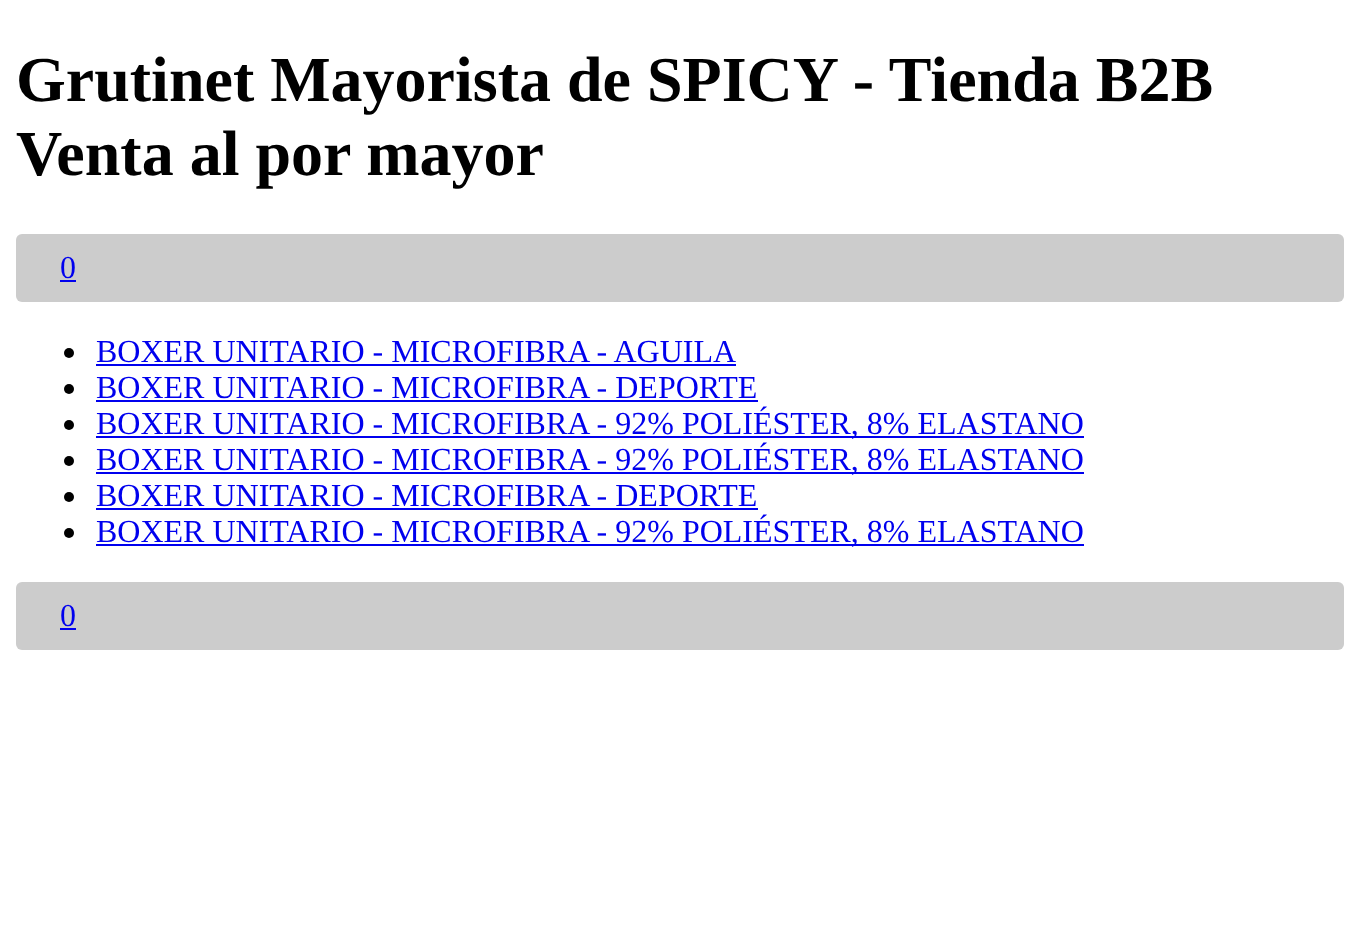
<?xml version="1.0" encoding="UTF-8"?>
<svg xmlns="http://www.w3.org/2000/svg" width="1360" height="934">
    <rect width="100%" height="100%" fill="#FFFFFF"/>
    <text font-family="Liberation Serif" font-size="64" font-weight="700" fill="#000000">
        <tspan x="16" y="101">Grutinet Mayorista de SPICY - Tienda B2B</tspan>
        <tspan x="16" y="175">Venta al por mayor</tspan>
    </text>
    <rect x="16" y="234" width="1328" height="68" rx="6" fill="#CCCCCC"/>
    <text x="60" y="278" font-family="Liberation Serif" font-size="32" fill="#0000EE">0</text>
    <rect x="60" y="280" width="16" height="2" fill="#0000EE"/>
    <circle cx="69" cy="353" r="5" fill="#000000"/>
    <text x="96" y="362" font-family="Liberation Serif" font-size="32" fill="#0000EE">BOXER UNITARIO - MICROFIBRA - AGUILA</text>
    <rect x="96" y="364" width="640" height="2" fill="#0000EE"/>
    <circle cx="69" cy="389" r="5" fill="#000000"/>
    <text x="96" y="398" font-family="Liberation Serif" font-size="32" fill="#0000EE">BOXER UNITARIO - MICROFIBRA - DEPORTE</text>
    <rect x="96" y="400" width="662" height="2" fill="#0000EE"/>
    <circle cx="69" cy="425" r="5" fill="#000000"/>
    <rect x="96" y="436" width="988" height="2" fill="#0000EE"/>
    <text x="96" y="434" font-family="Liberation Serif" font-size="32" fill="#0000EE">BOXER UNITARIO - MICROFIBRA - 92% POLIÉSTER, 8% ELASTANO</text>
    <circle cx="69" cy="461" r="5" fill="#000000"/>
    <rect x="96" y="472" width="988" height="2" fill="#0000EE"/>
    <text x="96" y="470" font-family="Liberation Serif" font-size="32" fill="#0000EE">BOXER UNITARIO - MICROFIBRA - 92% POLIÉSTER, 8% ELASTANO</text>
    <circle cx="69" cy="497" r="5" fill="#000000"/>
    <text x="96" y="506" font-family="Liberation Serif" font-size="32" fill="#0000EE">BOXER UNITARIO - MICROFIBRA - DEPORTE</text>
    <rect x="96" y="508" width="662" height="2" fill="#0000EE"/>
    <circle cx="69" cy="533" r="5" fill="#000000"/>
    <rect x="96" y="544" width="988" height="2" fill="#0000EE"/>
    <text x="96" y="542" font-family="Liberation Serif" font-size="32" fill="#0000EE">BOXER UNITARIO - MICROFIBRA - 92% POLIÉSTER, 8% ELASTANO</text>
    <rect x="16" y="582" width="1328" height="68" rx="6" fill="#CCCCCC"/>
    <text x="60" y="626" font-family="Liberation Serif" font-size="32" fill="#0000EE">0</text>
    <rect x="60" y="628" width="16" height="2" fill="#0000EE"/>
</svg>
